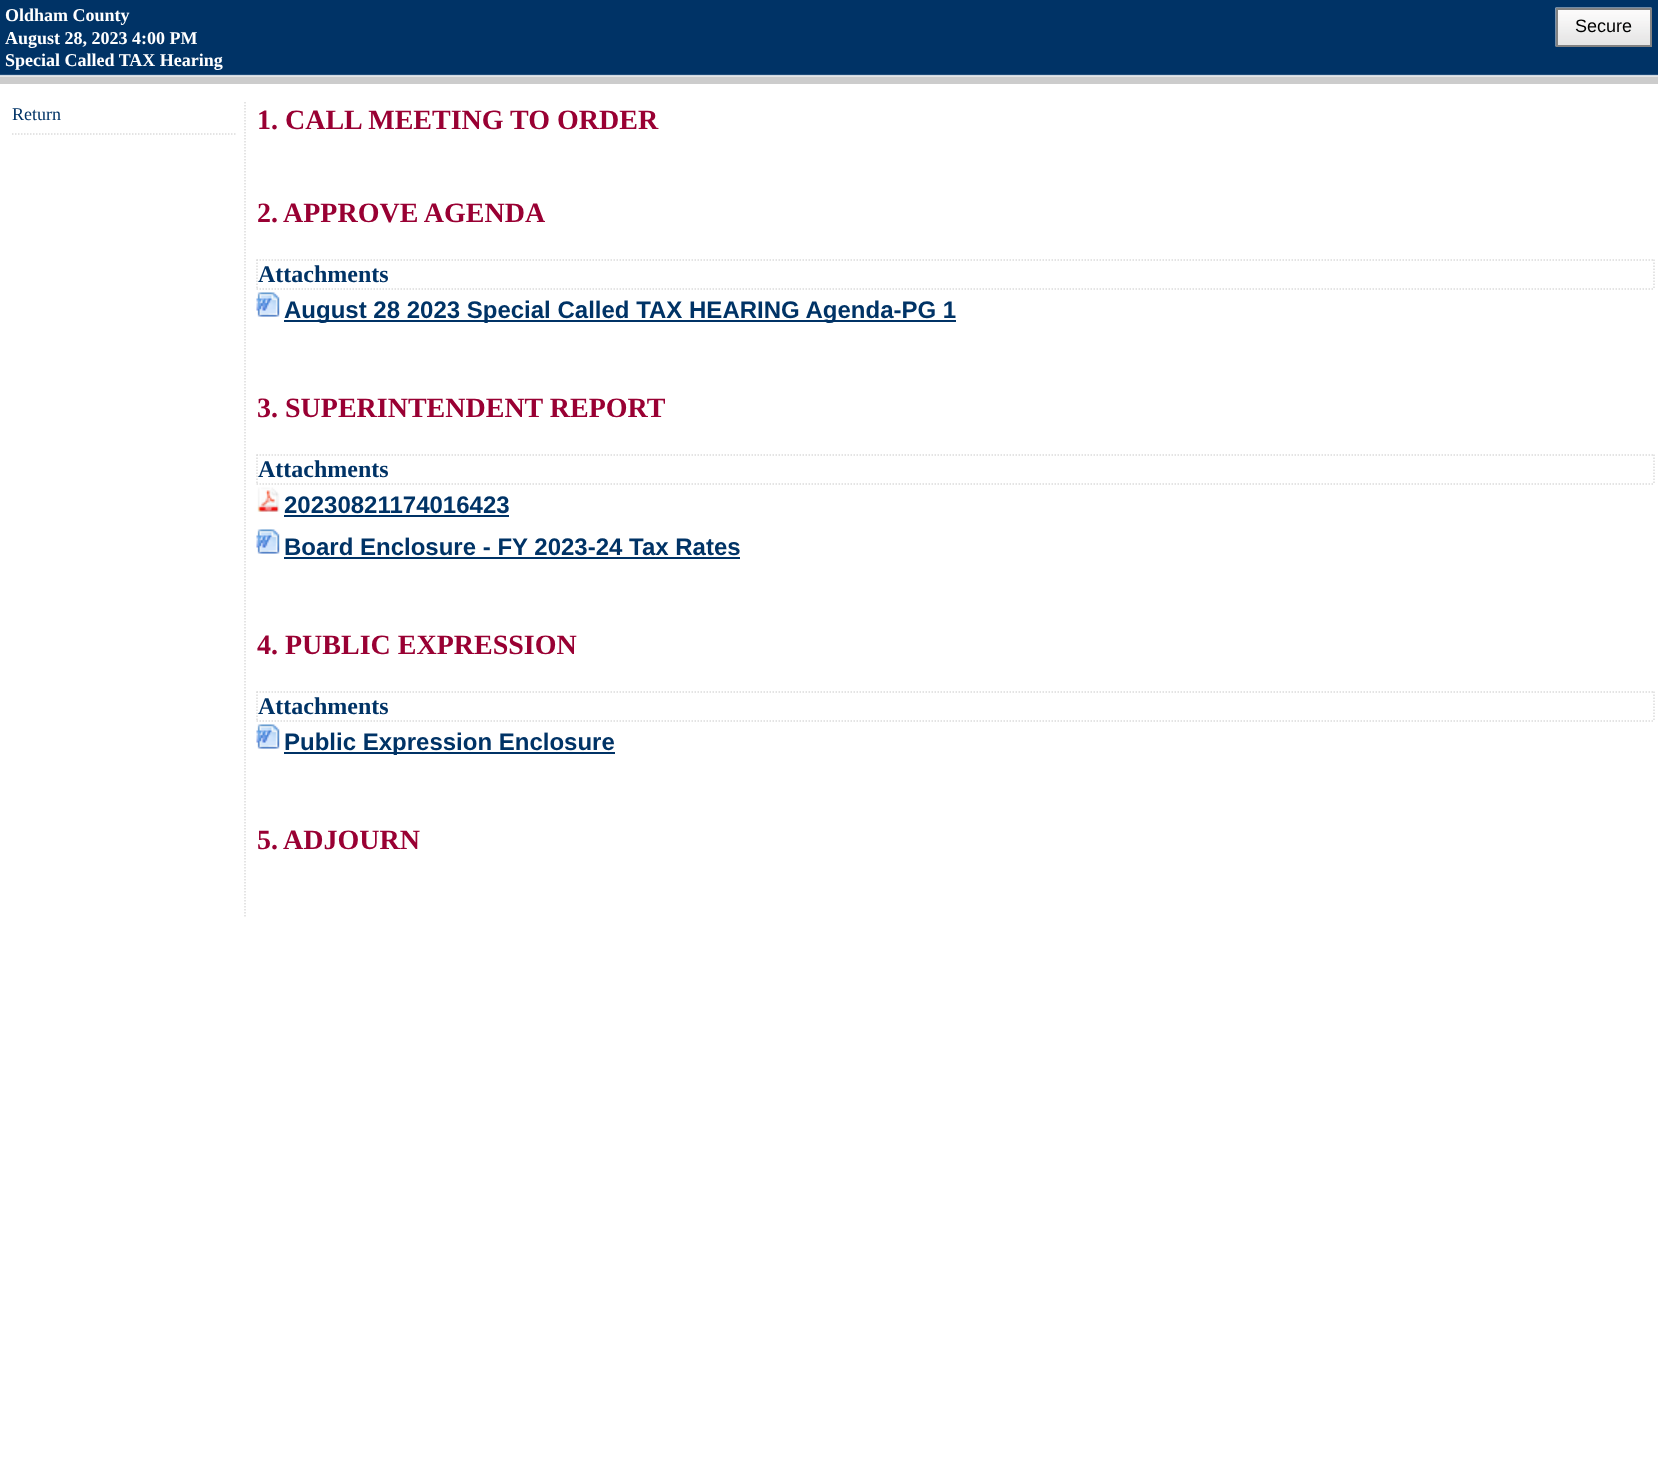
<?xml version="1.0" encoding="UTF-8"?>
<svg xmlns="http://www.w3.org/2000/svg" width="1658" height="1473">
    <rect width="100%" height="100%" fill="#FFFFFF"/>
    <image x="0" y="0" width="1658" height="84" href="img_01.png"/>
    <text font-family="Liberation Serif" font-size="18" font-weight="700" fill="#FFFFFF">
        <tspan x="5" y="21">Oldham County</tspan>
        <tspan x="5" y="44">August 28, 2023 4:00 PM</tspan>
        <tspan x="5" y="66">Special Called TAX Hearing</tspan>
    </text>
    <image x="1555" y="7" width="97" height="40" href="img_02.png"/>
    <rect x="1557" y="9" width="94" height="37" fill="none" stroke="#828282" stroke-width="2"/>
    <text x="1575" y="32" font-family="Liberation Sans" font-size="18" fill="#000000">Secure</text>
    <path d="M 245 102 V 918" fill="none" stroke="#DCDCDC" stroke-width="1.5" stroke-dasharray="1.5 1.5"/>
    <path d="M 12 134 H 237" fill="none" stroke="#DCDCDC" stroke-width="1.5" stroke-dasharray="1.5 1.5"/>
    <text x="12" y="120" font-family="Liberation Serif" font-size="18" fill="#003366">Return</text>
    <text x="257" y="129" font-family="Liberation Serif" font-size="28" font-weight="700" fill="#990033">1. CALL MEETING TO ORDER</text>
    <text x="257" y="222" font-family="Liberation Serif" font-size="28" font-weight="700" fill="#990033">2.</text>
    <text x="283" y="222" font-family="Liberation Serif" font-size="28" font-weight="700" fill="#990033">APPROVE AGENDA</text>
    <path d="M 256.5 260 H 1654.5" fill="none" stroke="#DCDCDC" stroke-width="1.5" stroke-dasharray="1.5 1.5"/>
    <path d="M 1654 259.5 V 289.5" fill="none" stroke="#DCDCDC" stroke-width="1.5" stroke-dasharray="1.5 1.5"/>
    <path d="M 256.5 289 H 1654.5" fill="none" stroke="#DCDCDC" stroke-width="1.5" stroke-dasharray="1.5 1.5"/>
    <path d="M 257 259.5 V 289.5" fill="none" stroke="#DCDCDC" stroke-width="1.5" stroke-dasharray="1.5 1.5"/>
    <text x="258" y="282" font-family="Liberation Serif" font-size="24" font-weight="700" fill="#003366">Attachments</text>
    <image x="256" y="292" width="24" height="25" href="img_03.png"/>
    <rect x="284" y="320" width="672" height="2" fill="#003366"/>
    <text x="284" y="318" font-family="Liberation Sans" font-size="24" font-weight="700" fill="#003366">August 28 2023 Special Called TAX HEARING Agenda-PG 1</text>
    <text x="257" y="417" font-family="Liberation Serif" font-size="28" font-weight="700" fill="#990033">3. SUPERINTENDENT REPORT</text>
    <path d="M 256.5 455 H 1654.5" fill="none" stroke="#DCDCDC" stroke-width="1.5" stroke-dasharray="1.5 1.5"/>
    <path d="M 1654 454.5 V 484.5" fill="none" stroke="#DCDCDC" stroke-width="1.5" stroke-dasharray="1.5 1.5"/>
    <path d="M 256.5 484 H 1654.5" fill="none" stroke="#DCDCDC" stroke-width="1.5" stroke-dasharray="1.5 1.5"/>
    <path d="M 257 454.5 V 484.5" fill="none" stroke="#DCDCDC" stroke-width="1.5" stroke-dasharray="1.5 1.5"/>
    <text x="258" y="477" font-family="Liberation Serif" font-size="24" font-weight="700" fill="#003366">Attachments</text>
    <image x="257" y="487" width="23" height="25" href="img_04.png"/>
    <text x="284" y="513" font-family="Liberation Sans" font-size="24" font-weight="700" fill="#003366">20230821174016423</text>
    <rect x="284" y="515" width="225" height="2" fill="#003366"/>
    <image x="256" y="529" width="24" height="25" href="img_03.png"/>
    <text x="284" y="555" font-family="Liberation Sans" font-size="24" font-weight="700" fill="#003366">Board Enclosure - FY 2023-24 Tax Rates</text>
    <rect x="284" y="557" width="456" height="2" fill="#003366"/>
    <text x="257" y="654" font-family="Liberation Serif" font-size="28" font-weight="700" fill="#990033">4. PUBLIC EXPRESSION</text>
    <path d="M 256.5 692 H 1654.5" fill="none" stroke="#DCDCDC" stroke-width="1.5" stroke-dasharray="1.5 1.5"/>
    <path d="M 1654 691.5 V 721.5" fill="none" stroke="#DCDCDC" stroke-width="1.5" stroke-dasharray="1.5 1.5"/>
    <path d="M 256.5 721 H 1654.5" fill="none" stroke="#DCDCDC" stroke-width="1.5" stroke-dasharray="1.5 1.5"/>
    <path d="M 257 691.5 V 721.5" fill="none" stroke="#DCDCDC" stroke-width="1.5" stroke-dasharray="1.5 1.5"/>
    <text x="258" y="714" font-family="Liberation Serif" font-size="24" font-weight="700" fill="#003366">Attachments</text>
    <image x="256" y="724" width="24" height="25" href="img_03.png"/>
    <rect x="284" y="752" width="331" height="2" fill="#003366"/>
    <text x="284" y="750" font-family="Liberation Sans" font-size="24" font-weight="700" fill="#003366">Public Expression Enclosure</text>
    <text x="257" y="849" font-family="Liberation Serif" font-size="28" font-weight="700" fill="#990033">5.</text>
    <text x="283" y="849" font-family="Liberation Serif" font-size="28" font-weight="700" fill="#990033">ADJOURN</text>
</svg>
